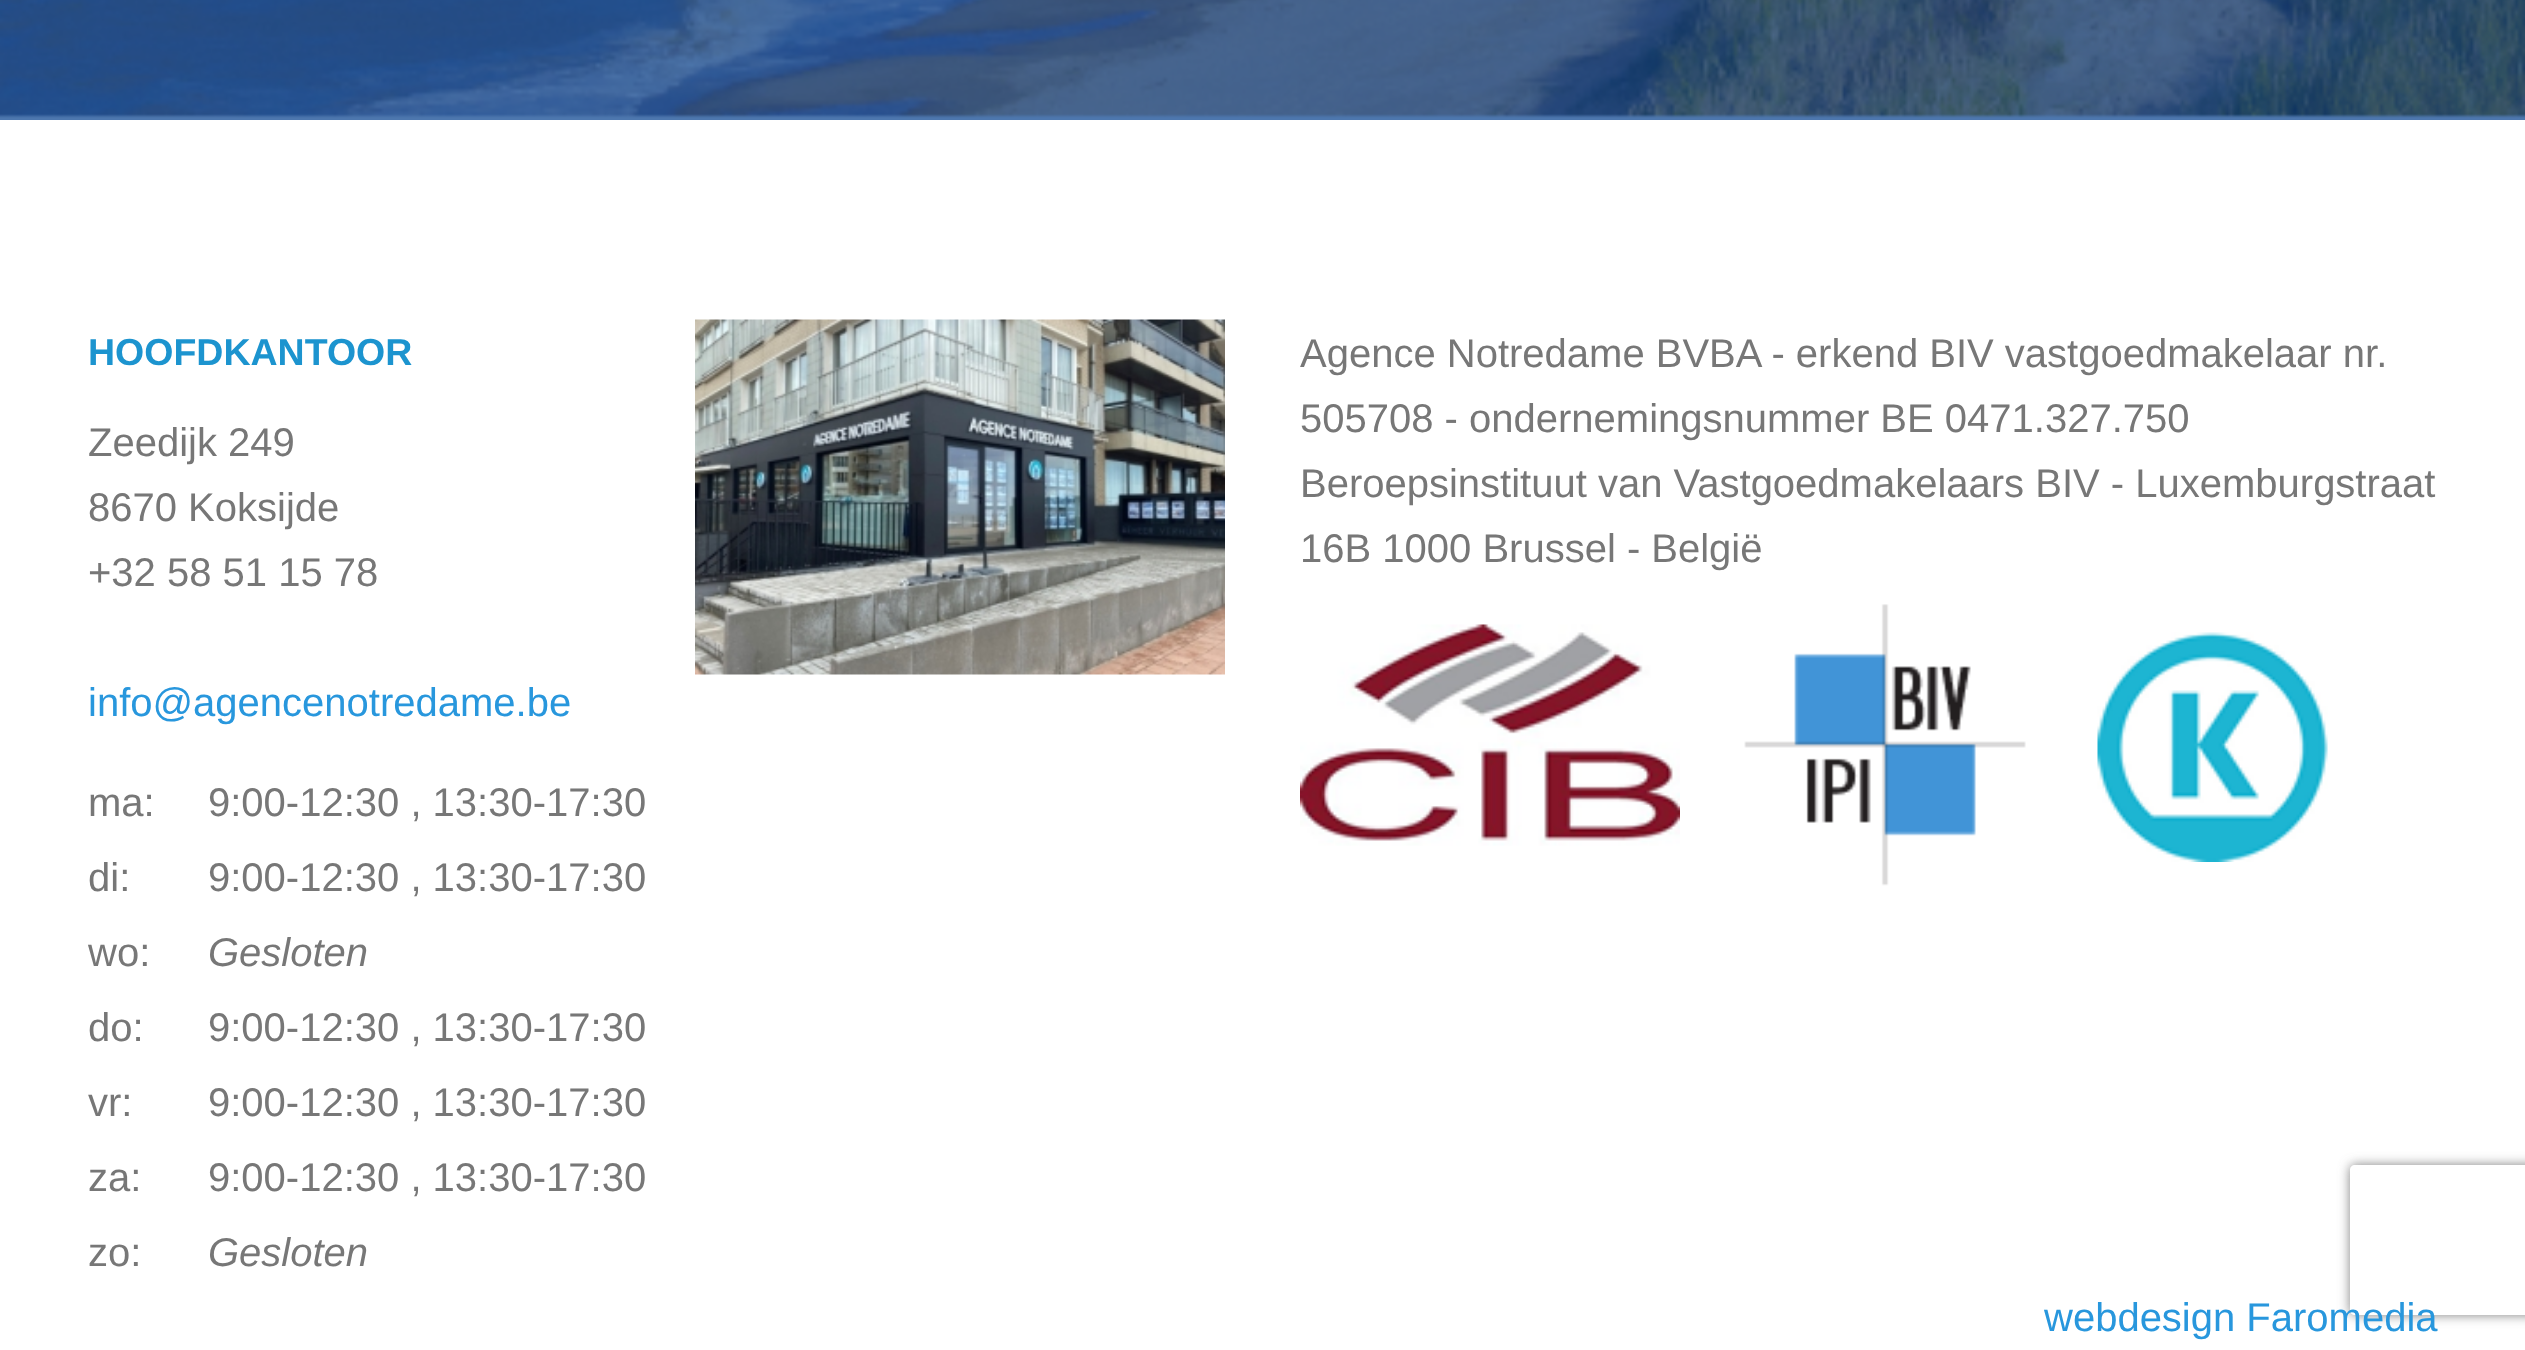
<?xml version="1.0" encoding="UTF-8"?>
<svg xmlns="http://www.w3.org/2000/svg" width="2525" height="1350">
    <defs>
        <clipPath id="clip1"><path d="M 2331 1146 H 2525 V 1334 H 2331 Z M 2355 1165 H 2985 C 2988 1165 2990 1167 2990 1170 V 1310 C 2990 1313 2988 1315 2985 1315 H 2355 C 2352 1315 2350 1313 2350 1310 V 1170 C 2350 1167 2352 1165 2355 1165 Z" clip-rule="evenodd"/></clipPath>
        <filter id="blur1" x="-50%" y="-200%" width="200%" height="500%"><feGaussianBlur stdDeviation="6"/></filter>
    </defs>
    <rect width="100%" height="100%" fill="#FFFFFF"/>
    <rect x="0" y="114" width="2525" height="6" fill="#4D77AE"/>
    <image x="0" y="0" width="2525" height="118" href="img_01.png"/>
    <text x="88" y="365" font-family="Liberation Sans" font-size="37.5" font-weight="700" fill="#1C94CF">HOOFDKANTOOR</text>
    <text font-family="Liberation Sans" font-size="40" fill="#777777">
        <tspan x="88" y="456">Zeedijk 249</tspan>
        <tspan x="88" y="521">8670 Koksijde</tspan>
        <tspan x="88" y="586">+32 58 51 15 78</tspan>
    </text>
    <text x="88" y="716" font-family="Liberation Sans" font-size="40" fill="#2897DD">info@agencenotredame.be</text>
    <text x="88" y="816" font-family="Liberation Sans" font-size="40" fill="#777777">ma:</text>
    <text x="208" y="816" font-family="Liberation Sans" font-size="40" fill="#777777">9:00-12:30 , 13:30-17:30</text>
    <text x="88" y="891" font-family="Liberation Sans" font-size="40" fill="#777777">di:</text>
    <text x="208" y="891" font-family="Liberation Sans" font-size="40" fill="#777777">9:00-12:30 , 13:30-17:30</text>
    <text x="88" y="966" font-family="Liberation Sans" font-size="40" fill="#777777">wo:</text>
    <text x="208" y="966" font-family="Liberation Sans" font-size="40" font-style="italic" fill="#777777">Gesloten</text>
    <text x="88" y="1041" font-family="Liberation Sans" font-size="40" fill="#777777">do:</text>
    <text x="208" y="1041" font-family="Liberation Sans" font-size="40" fill="#777777">9:00-12:30 , 13:30-17:30</text>
    <text x="88" y="1116" font-family="Liberation Sans" font-size="40" fill="#777777">vr:</text>
    <text x="208" y="1116" font-family="Liberation Sans" font-size="40" fill="#777777">9:00-12:30 , 13:30-17:30</text>
    <text x="88" y="1191" font-family="Liberation Sans" font-size="40" fill="#777777">za:</text>
    <text x="208" y="1191" font-family="Liberation Sans" font-size="40" fill="#777777">9:00-12:30 , 13:30-17:30</text>
    <text x="88" y="1266" font-family="Liberation Sans" font-size="40" fill="#777777">zo:</text>
    <text x="208" y="1266" font-family="Liberation Sans" font-size="40" font-style="italic" fill="#777777">Gesloten</text>
    <image x="695" y="319" width="530" height="356" href="img_02.png"/>
    <text font-family="Liberation Sans" font-size="40" fill="#777777">
        <tspan x="1300" y="367">Agence Notredame BVBA - erkend BIV vastgoedmakelaar nr.</tspan>
        <tspan x="1300" y="432">505708 - ondernemingsnummer BE 0471.327.750</tspan>
        <tspan x="1300" y="497">Beroepsinstituut van Vastgoedmakelaars BIV - Luxemburgstraat</tspan>
        <tspan x="1300" y="562">16B 1000 Brussel - België</tspan>
    </text>
    <image x="1300" y="624" width="380" height="222" href="img_03.png"/>
    <image x="1744" y="604" width="282" height="282" href="img_04.png"/>
    <image x="2097" y="632" width="231" height="230" href="img_05.png"/>
    <g clip-path="url(#clip1)">
        <rect x="2350" y="1165" width="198" height="150" rx="5" fill="#808080" filter="url(#blur1)"/>
    </g>
    <text x="2044" y="1331" font-family="Liberation Sans" font-size="40" fill="#2897DD">webdesign Faromedia</text>
</svg>
